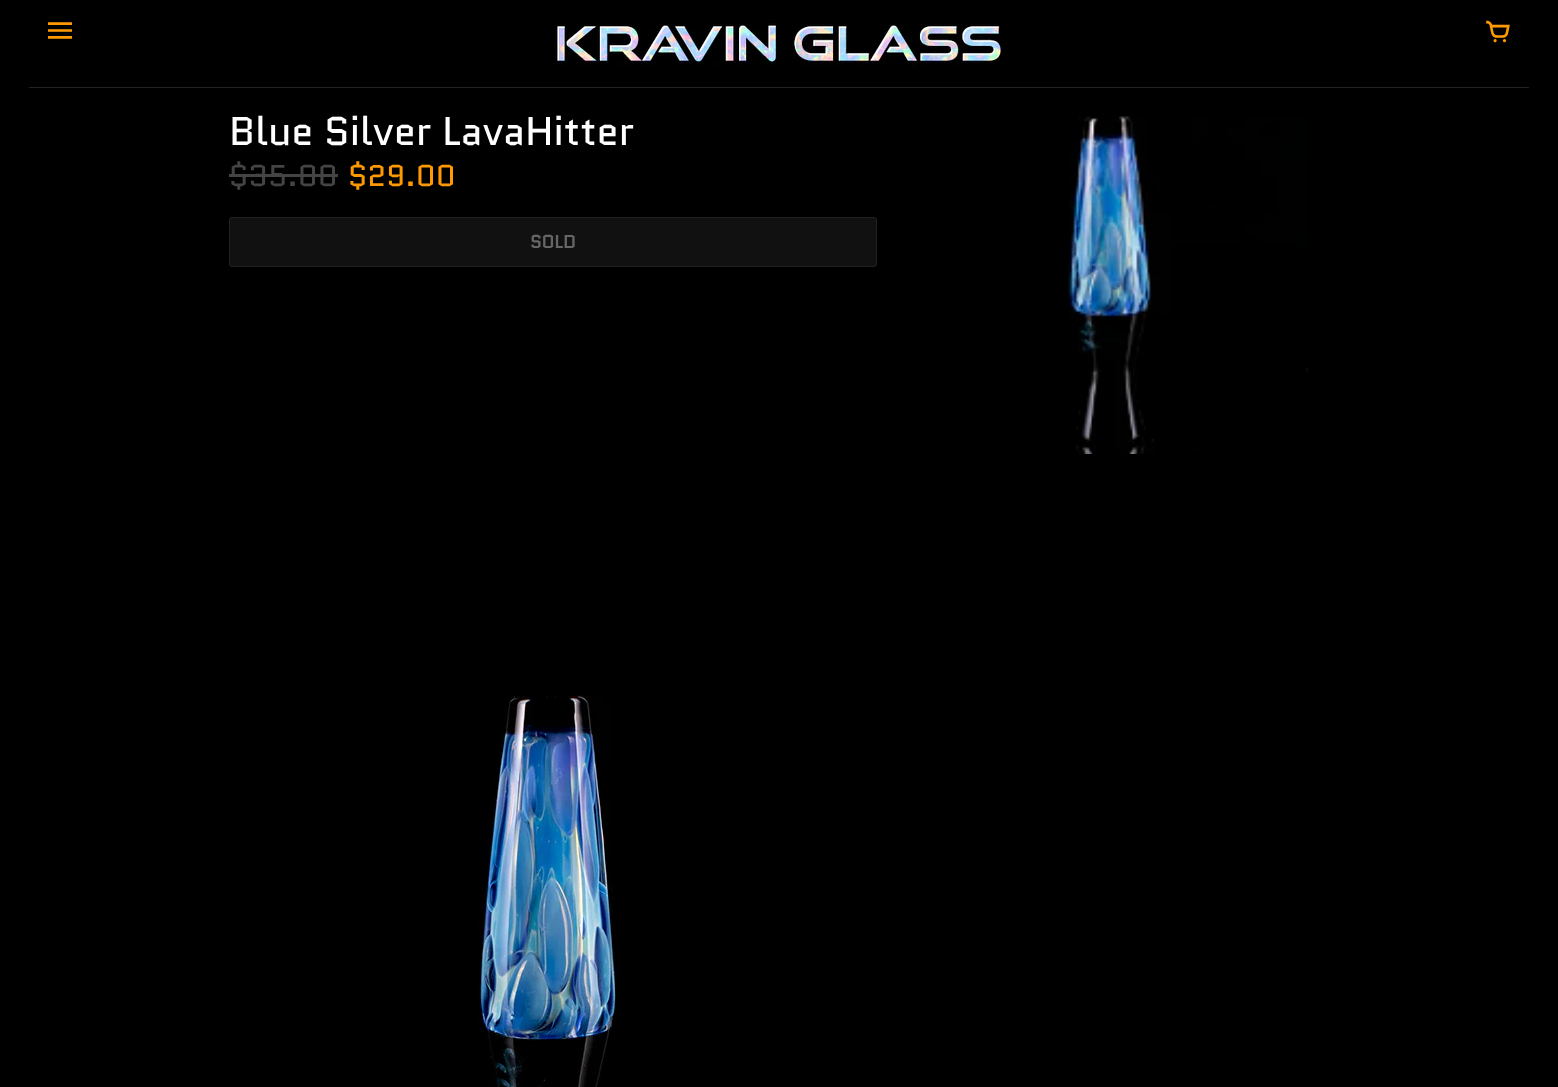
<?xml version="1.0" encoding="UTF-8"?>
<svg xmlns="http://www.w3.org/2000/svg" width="1558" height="1087">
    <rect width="100%" height="100%" fill="#000000"/>
    <rect x="29" y="87" width="1500" height="1" fill="#222222"/>
    <text x="48" y="44" font-family="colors" font-size="24" fill="#FF9900">1</text>
    <image x="555" y="23" width="449" height="44" href="img_01.png"/>
    <text x="1486" y="45" font-family="colors" font-size="24" fill="#FF9900">3</text>
    <text x="229" y="145" font-family="Quantico" font-size="40" fill="#FFFFFF">Blue Silver LavaHitter</text>
    <text x="229" y="186" font-family="Quantico" font-size="30" fill="#444444">$35.00</text>
    <rect x="229" y="174" width="109" height="3" fill="#444444"/>
    <text x="348" y="186" font-family="Quantico" font-size="30" fill="#FF9900">$29.00</text>
    <rect x="229.5" y="217.5" width="647" height="49" rx="2.5" fill="#111111" stroke="#222222"/>
    <text x="530" y="248" font-family="Quantico" font-size="18" font-weight="700" fill="#666666">SOLD</text>
    <image x="477" y="695" width="144" height="392" href="img_02.png"/>
    <image x="1068" y="116" width="241" height="338" href="img_03.png"/>
</svg>
